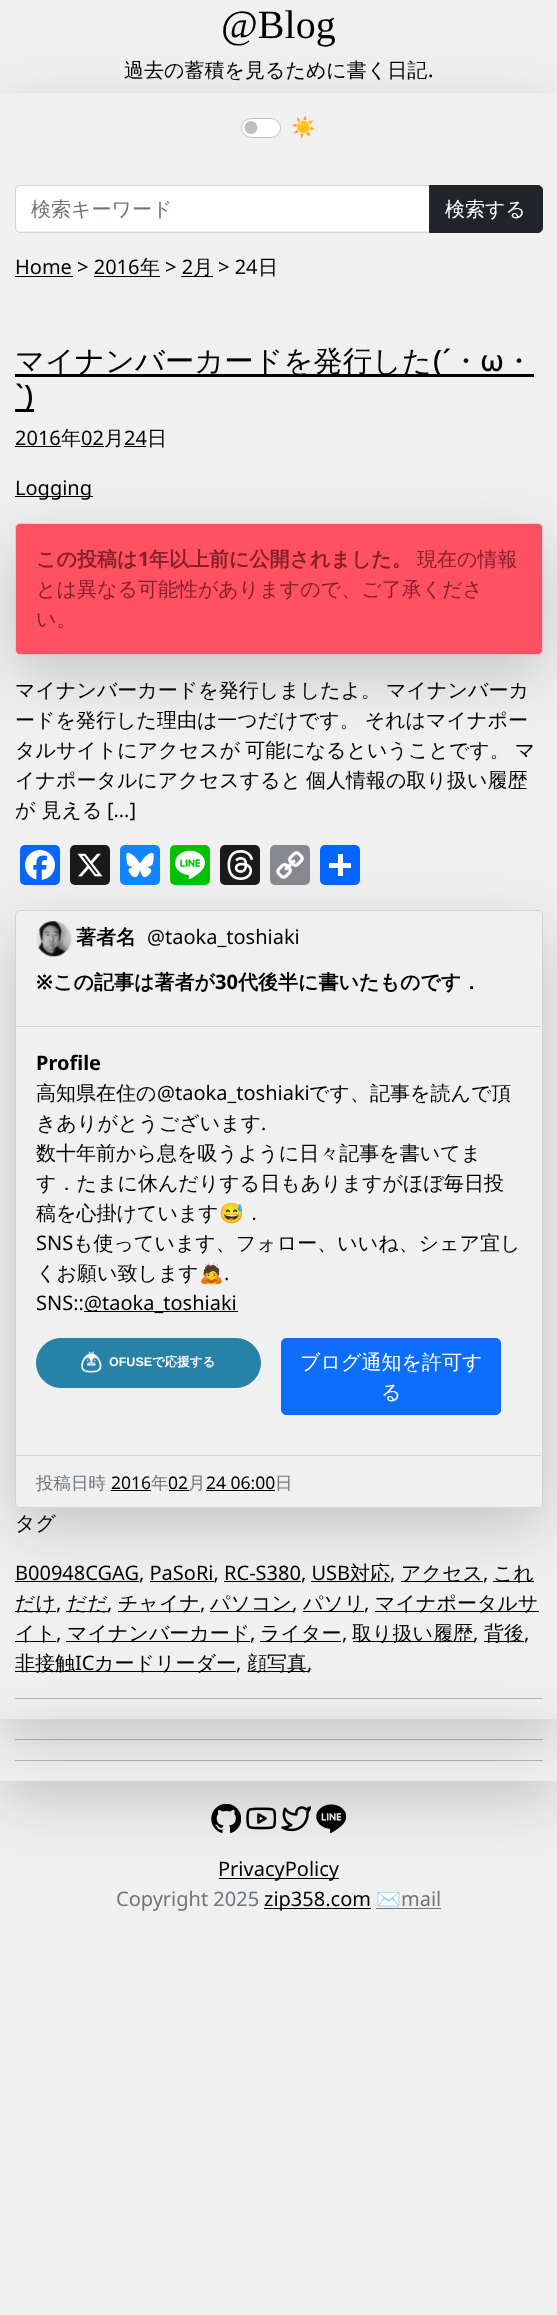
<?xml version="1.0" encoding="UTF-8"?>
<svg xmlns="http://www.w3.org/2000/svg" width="557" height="2315">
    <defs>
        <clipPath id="clip1"><path d="M 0 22 H 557 V 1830 H 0 Z M 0 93 H 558 V 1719 H 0 Z" clip-rule="evenodd"/></clipPath>
        <filter id="blur1" x="-50%" y="-200%" width="200%" height="500%"><feGaussianBlur stdDeviation="30"/></filter>
        <clipPath id="clip2"><path d="M 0 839 H 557 V 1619 H 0 Z M 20 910 H 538 C 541 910 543 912 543 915 V 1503 C 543 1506 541 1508 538 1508 H 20 C 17 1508 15 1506 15 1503 V 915 C 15 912 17 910 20 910 Z" clip-rule="evenodd"/></clipPath>
        <clipPath id="clip3"><path d="M 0 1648 H 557 V 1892 H 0 Z M 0 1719 H 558 V 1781 H 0 Z" clip-rule="evenodd"/></clipPath>
    </defs>
    <rect width="100%" height="100%" fill="#F0F0F0"/>
    <text x="221" y="38" font-family="Liberation Serif" font-size="40" fill="#000000">@Blog</text>
    <text x="124" y="77" font-family="WenQuanYi Zen Hei" font-size="20" font-weight="500" fill="#000000">過去の蓄積を見るために書く日記</text>
    <text x="428" y="77" font-family="Noto Sans" font-size="20" font-weight="500" fill="#000000">.</text>
    <g clip-path="url(#clip1)">
        <rect x="0" y="113" width="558" height="1626" fill="#000000" fill-opacity="0.18" filter="url(#blur1)"/>
    </g>
    <rect x="241" y="118" width="40" height="20" rx="10" fill="#FFFFFF"/>
    <circle cx="251" cy="127.5" r="6.5" fill="#BFBFBF"/>
    <rect x="241.5" y="118.5" width="39" height="19" rx="9.5" fill="none" stroke="#000000" stroke-opacity="0.25"/>
    <text x="291" y="134" font-family="Noto Color Emoji" font-size="20" fill="#000000">☀️</text>
    <path d="M 20 186 H 429 V 231 H 20 C 18 231 16 229 16 227 V 190 C 16 188 18 186 20 186 Z" fill="#FFFFFF"/>
    <path d="M 20 185.5 H 429.5 V 232.5 H 20 C 17.5 232.5 15.5 230.5 15.5 228 V 190 C 15.5 187.5 17.5 185.5 20 185.5 Z" fill="none" stroke="#CED4DA"/>
    <text x="31" y="216" font-family="WenQuanYi Zen Hei" font-size="20" font-weight="500" fill="#6C757D">検索キーワード</text>
    <path d="M 429.5 185.5 H 538 C 540.5 185.5 542.5 187.5 542.5 190 V 228 C 542.5 230.5 540.5 232.5 538 232.5 H 429.5 Z" fill="#212529" stroke="#212529"/>
    <text x="445" y="216" font-family="WenQuanYi Zen Hei" font-size="20" font-weight="500" fill="#FFFFFF">検索する</text>
    <text x="15" y="274" font-family="Noto Sans" font-size="20" fill="#000000">Home &gt; 2016</text>
    <rect x="15" y="276" width="58" height="1" fill="#000000"/>
    <rect x="94" y="276" width="66" height="1" fill="#000000"/>
    <text x="140" y="274" font-family="WenQuanYi Zen Hei" font-size="20" font-weight="500" fill="#000000">年</text>
    <text x="165" y="274" font-family="Noto Sans" font-size="20" fill="#000000">&gt; 2</text>
    <rect x="181" y="276" width="32" height="1" fill="#000000"/>
    <text x="193" y="274" font-family="WenQuanYi Zen Hei" font-size="20" font-weight="500" fill="#000000">月</text>
    <text x="218" y="274" font-family="Noto Sans" font-size="20" fill="#000000">&gt; 24</text>
    <text x="258" y="274" font-family="WenQuanYi Zen Hei" font-size="20" font-weight="500" fill="#000000">日</text>
    <rect x="15" y="374" width="519" height="3" fill="#000000"/>
    <text x="15" y="371" font-family="WenQuanYi Zen Hei" font-size="29.3" font-weight="500" fill="#000000">マイナンバーカードを発行した</text>
    <text x="433" y="371" font-family="Noto Sans" font-size="29.3" font-weight="500" fill="#000000">(´</text>
    <text x="451" y="371" font-family="WenQuanYi Zen Hei" font-size="29.3" font-weight="500" fill="#000000">・</text>
    <text x="480" y="371" font-family="Noto Sans" font-size="29.3" font-weight="500" fill="#000000">ω</text>
    <text x="504" y="371" font-family="WenQuanYi Zen Hei" font-size="29.3" font-weight="500" fill="#000000">・</text>
    <rect x="15" y="409" width="19" height="3" fill="#000000"/>
    <text x="15" y="406" font-family="Noto Sans" font-size="29.3" font-weight="500" fill="#000000">`)</text>
    <text x="15" y="445" font-family="Noto Sans" font-size="20" fill="#000000">2016</text>
    <rect x="15" y="446" width="46" height="1" fill="#000000"/>
    <text x="61" y="445" font-family="WenQuanYi Zen Hei" font-size="20" font-weight="500" fill="#000000">年</text>
    <text x="81" y="445" font-family="Noto Sans" font-size="20" fill="#000000">02</text>
    <rect x="81" y="446" width="23" height="1" fill="#000000"/>
    <text x="104" y="445" font-family="WenQuanYi Zen Hei" font-size="20" font-weight="500" fill="#000000">月</text>
    <text x="124" y="445" font-family="Noto Sans" font-size="20" fill="#000000">24</text>
    <rect x="124" y="446" width="22" height="1" fill="#000000"/>
    <text x="147" y="445" font-family="WenQuanYi Zen Hei" font-size="20" font-weight="500" fill="#000000">日</text>
    <rect x="15" y="496" width="78" height="1" fill="#000000"/>
    <text x="15" y="495" font-family="Noto Sans" font-size="20" fill="#000000">Logging</text>
    <rect x="15" y="543" width="528" height="132" rx="5" fill="#000000" fill-opacity="0.18" filter="url(#blur1)"/>
    <rect x="15.5" y="523.5" width="527" height="131" rx="4.5" fill="#FF5162" stroke="#F5C2C7"/>
    <text x="36" y="566" font-family="WenQuanYi Zen Hei" font-size="20" font-weight="700" fill="#842029">この投稿は</text>
    <text x="138" y="566" font-family="Noto Sans" font-size="20" font-weight="700" fill="#842029">1</text>
    <text x="149" y="566" font-family="WenQuanYi Zen Hei" font-size="20" font-weight="700" fill="#842029">年以上前に公開されました。</text>
    <text x="417" y="566" font-family="WenQuanYi Zen Hei" font-size="20" font-weight="500" fill="#842029">現在の情報</text>
    <text font-family="WenQuanYi Zen Hei" font-size="20" font-weight="500" fill="#842029">
        <tspan x="36" y="596">とは異なる可能性がありますので、ご了承くださ</tspan>
        <tspan x="36" y="626">い。</tspan>
    </text>
    <text font-family="WenQuanYi Zen Hei" font-size="20" font-weight="500" fill="#000000">
        <tspan x="15" y="697" word-spacing="-1">マイナンバーカードを発行しましたよ。 マイナンバーカ</tspan>
        <tspan x="15" y="727" word-spacing="-1">ードを発行した理由は一つだけです。 それはマイナポー</tspan>
        <tspan x="15" y="757" word-spacing="-1">タルサイトにアクセスが 可能になるということです。 マ</tspan>
        <tspan x="15" y="787" word-spacing="-1">イナポータルにアクセスすると 個人情報の取り扱い履歴</tspan>
        <tspan x="15" y="817">が 見える</tspan>
    </text>
    <text x="107" y="817" font-family="Noto Sans" font-size="20" fill="#000000">[…]</text>
    <rect x="20" y="845" width="40" height="40" rx="5" fill="#0866FF"/>
    <image x="25" y="850" width="30" height="30" href="img_01.png"/>
    <rect x="70" y="845" width="40" height="40" rx="5" fill="#1A1A1A"/>
    <image x="77" y="853" width="26" height="24" href="img_02.png"/>
    <rect x="120" y="845" width="40" height="40" rx="5" fill="#1285FE"/>
    <image x="126" y="852" width="28" height="26" href="img_03.png"/>
    <rect x="170" y="845" width="40" height="40" rx="5" fill="#00C300"/>
    <image x="175" y="850" width="30" height="30" href="img_04.png"/>
    <rect x="220" y="845" width="40" height="40" rx="5" fill="#1A1A1A"/>
    <image x="227" y="850" width="27" height="30" href="img_05.png"/>
    <rect x="270" y="845" width="40" height="40" rx="5" fill="#888990"/>
    <image x="276" y="851" width="28" height="28" href="img_06.png"/>
    <rect x="320" y="845" width="40" height="40" rx="5" fill="#0166FF"/>
    <rect x="338" y="854" width="5" height="22" fill="#FFFFFF"/>
    <rect x="329" y="863" width="22" height="5" fill="#FFFFFF"/>
    <rect x="15" y="1581" width="124" height="1" fill="#000000"/>
    <rect x="311" y="1581" width="79" height="1" fill="#000000"/>
    <rect x="401" y="1581" width="82" height="1" fill="#000000"/>
    <rect x="493" y="1581" width="41" height="1" fill="#000000"/>
    <rect x="150" y="1581" width="64" height="1" fill="#000000"/>
    <rect x="224" y="1581" width="77" height="1" fill="#000000"/>
    <rect x="15" y="1611" width="41" height="1" fill="#000000"/>
    <rect x="66" y="1611" width="42" height="1" fill="#000000"/>
    <rect x="118" y="1611" width="82" height="1" fill="#000000"/>
    <rect x="210" y="1611" width="83" height="1" fill="#000000"/>
    <rect x="303" y="1611" width="61" height="1" fill="#000000"/>
    <rect x="375" y="1611" width="164" height="1" fill="#000000"/>
    <g clip-path="url(#clip2)">
        <rect x="15" y="930" width="528" height="598" rx="5" fill="#000000" fill-opacity="0.18" filter="url(#blur1)"/>
    </g>
    <rect x="15.5" y="910.5" width="527" height="597" rx="4.5" fill="none" stroke="#000000" stroke-opacity="0.12"/>
    <rect x="16" y="1026" width="525" height="1" fill="#D2D2D2"/>
    <image x="36" y="921" width="36" height="36" href="img_07.png"/>
    <text x="76" y="944" font-family="WenQuanYi Zen Hei" font-size="20" font-weight="700" fill="#000000">著者名</text>
    <text x="147" y="944" font-family="Noto Sans" font-size="20" fill="#000000">@taoka_toshiaki</text>
    <text x="36" y="989" font-family="Noto Sans" font-size="20" font-weight="700" fill="#000000">※</text>
    <text x="53" y="989" font-family="WenQuanYi Zen Hei" font-size="20" font-weight="700" fill="#000000">この記事は著者が</text>
    <text x="215" y="989" font-family="Noto Sans" font-size="20" font-weight="700" fill="#000000">30</text>
    <text x="238" y="989" font-family="WenQuanYi Zen Hei" font-size="20" font-weight="700" fill="#000000">代後半に書いたものです．</text>
    <text x="36" y="1070" font-family="Noto Sans" font-size="20" font-weight="700" fill="#000000">Profile</text>
    <text x="36" y="1100" font-family="WenQuanYi Zen Hei" font-size="20" font-weight="500" fill="#000000">高知県在住の</text>
    <text x="157" y="1100" font-family="Noto Sans" font-size="20" fill="#000000">@taoka_toshiaki</text>
    <text x="309" y="1100" font-family="WenQuanYi Zen Hei" font-size="20" font-weight="500" fill="#000000">です、記事を読んで頂</text>
    <text x="36" y="1130" font-family="WenQuanYi Zen Hei" font-size="20" font-weight="500" fill="#000000">きありがとうございます</text>
    <text x="261" y="1130" font-family="Noto Sans" font-size="20" fill="#000000">.</text>
    <text font-family="WenQuanYi Zen Hei" font-size="20" font-weight="500" fill="#000000">
        <tspan x="36" y="1160">数十年前から息を吸うように日々記事を書いてま</tspan>
        <tspan x="36" y="1190">す．たまに休んだりする日もありますがほぼ毎日投</tspan>
        <tspan x="36" y="1220">稿を心掛けています</tspan>
    </text>
    <text x="219" y="1220" font-family="Noto Color Emoji" font-size="20" fill="#000000">😅</text>
    <text x="244" y="1220" font-family="WenQuanYi Zen Hei" font-size="20" font-weight="500" fill="#000000">．</text>
    <text x="36" y="1250" font-family="Noto Sans" font-size="20" fill="#000000">SNS</text>
    <text x="73" y="1250" font-family="WenQuanYi Zen Hei" font-size="20" font-weight="500" fill="#000000">も使っています、フォロー、いいね、シェア宜し</text>
    <text x="36" y="1280" font-family="WenQuanYi Zen Hei" font-size="20" font-weight="500" fill="#000000">くお願い致します</text>
    <text x="199" y="1280" font-family="Noto Color Emoji" font-size="20" fill="#000000">🙇</text>
    <text x="224" y="1280" font-family="Noto Sans" font-size="20" fill="#000000">.</text>
    <text x="36" y="1310" font-family="Noto Sans" font-size="20" fill="#000000">SNS::</text>
    <rect x="84" y="1311" width="154" height="1" fill="#000000"/>
    <text x="84" y="1310" font-family="Noto Sans" font-size="20" fill="#000000">@taoka_toshiaki</text>
    <rect x="36.5" y="1338.5" width="224" height="49" rx="24.5" fill="#2882A7" stroke="#2882A7"/>
    <image x="81" y="1351" width="21" height="22" href="img_08.png"/>
    <text x="109" y="1366" font-family="Liberation Sans" font-size="12.5" font-weight="700" fill="#FFFFFF">OFUSE</text>
    <text x="152" y="1366" font-family="WenQuanYi Zen Hei" font-size="12.5" font-weight="700" fill="#FFFFFF">で応援する</text>
    <rect x="281.5" y="1338.5" width="219" height="76" rx="4.5" fill="#0D6EFD" stroke="#0D6EFD"/>
    <text x="300" y="1369" font-family="WenQuanYi Zen Hei" font-size="20" font-weight="500" fill="#FFFFFF">ブログ通知を許可す</text>
    <text x="381" y="1399" font-family="WenQuanYi Zen Hei" font-size="20" font-weight="500" fill="#FFFFFF">る</text>
    <rect x="16" y="1455" width="525" height="1" fill="#D2D2D2"/>
    <text x="36" y="1489" font-family="WenQuanYi Zen Hei" font-size="17.5" font-weight="500" fill="#6C757D">投稿日時</text>
    <text x="111" y="1489" font-family="Noto Sans" font-size="17.5" fill="#000000">2016</text>
    <rect x="111" y="1490" width="40" height="1" fill="#000000"/>
    <text x="151" y="1489" font-family="WenQuanYi Zen Hei" font-size="17.5" font-weight="500" fill="#6C757D">年</text>
    <text x="168" y="1489" font-family="Noto Sans" font-size="17.5" fill="#000000">02</text>
    <text x="188" y="1489" font-family="WenQuanYi Zen Hei" font-size="17.5" font-weight="500" fill="#6C757D">月</text>
    <rect x="169" y="1490" width="20" height="1" fill="#000000"/>
    <text x="206" y="1489" font-family="Noto Sans" font-size="17.5" fill="#000000">24 06:00</text>
    <rect x="206" y="1490" width="69" height="1" fill="#000000"/>
    <text x="275" y="1489" font-family="WenQuanYi Zen Hei" font-size="17.5" font-weight="500" fill="#6C757D">日</text>
    <text x="15" y="1530" font-family="WenQuanYi Zen Hei" font-size="20" font-weight="500" fill="#000000">タグ</text>
    <text x="15" y="1580" font-family="Noto Sans" font-size="20" fill="#000000">B00948CGAG, PaSoRi, RC-S380, USB</text>
    <text x="350" y="1580" font-family="WenQuanYi Zen Hei" font-size="20" font-weight="500" fill="#000000">対応</text>
    <text x="390" y="1580" font-family="Noto Sans" font-size="20" fill="#000000">,</text>
    <text x="401" y="1580" font-family="WenQuanYi Zen Hei" font-size="20" font-weight="500" fill="#000000">アクセス</text>
    <text x="483" y="1580" font-family="Noto Sans" font-size="20" fill="#000000">,</text>
    <text x="493" y="1580" font-family="WenQuanYi Zen Hei" font-size="20" font-weight="500" fill="#000000">これ</text>
    <text x="15" y="1610" font-family="WenQuanYi Zen Hei" font-size="20" font-weight="500" fill="#000000">だけ</text>
    <text x="56" y="1610" font-family="Noto Sans" font-size="20" fill="#000000">,</text>
    <text x="67" y="1610" font-family="WenQuanYi Zen Hei" font-size="20" font-weight="500" fill="#000000">だだ</text>
    <text x="107" y="1610" font-family="Noto Sans" font-size="20" fill="#000000">,</text>
    <text x="118" y="1610" font-family="WenQuanYi Zen Hei" font-size="20" font-weight="500" fill="#000000">チャイナ</text>
    <text x="200" y="1610" font-family="Noto Sans" font-size="20" fill="#000000">,</text>
    <text x="210" y="1610" font-family="WenQuanYi Zen Hei" font-size="20" font-weight="500" fill="#000000">パソコン</text>
    <text x="292" y="1610" font-family="Noto Sans" font-size="20" fill="#000000">,</text>
    <text x="303" y="1610" font-family="WenQuanYi Zen Hei" font-size="20" font-weight="500" fill="#000000">パソリ</text>
    <text x="364" y="1610" font-family="Noto Sans" font-size="20" fill="#000000">,</text>
    <text x="375" y="1610" font-family="WenQuanYi Zen Hei" font-size="20" font-weight="500" fill="#000000">マイナポータルサ</text>
    <rect x="15" y="1641" width="41" height="1" fill="#000000"/>
    <text x="15" y="1640" font-family="WenQuanYi Zen Hei" font-size="20" font-weight="500" fill="#000000">イト</text>
    <text x="56" y="1640" font-family="Noto Sans" font-size="20" fill="#000000">,</text>
    <rect x="66" y="1641" width="184" height="1" fill="#000000"/>
    <text x="67" y="1640" font-family="WenQuanYi Zen Hei" font-size="20" font-weight="500" fill="#000000">マイナンバーカード</text>
    <text x="250" y="1640" font-family="Noto Sans" font-size="20" fill="#000000">,</text>
    <rect x="260" y="1641" width="81" height="1" fill="#000000"/>
    <text x="260" y="1640" font-family="WenQuanYi Zen Hei" font-size="20" font-weight="500" fill="#000000">ライター</text>
    <text x="342" y="1640" font-family="Noto Sans" font-size="20" fill="#000000">,</text>
    <rect x="353" y="1641" width="121" height="1" fill="#000000"/>
    <text x="352" y="1640" font-family="WenQuanYi Zen Hei" font-size="20" font-weight="500" fill="#000000">取り扱い履歴</text>
    <text x="473" y="1640" font-family="Noto Sans" font-size="20" fill="#000000">,</text>
    <rect x="484" y="1641" width="40" height="1" fill="#000000"/>
    <text x="484" y="1640" font-family="WenQuanYi Zen Hei" font-size="20" font-weight="500" fill="#000000">背後</text>
    <text x="524" y="1640" font-family="Noto Sans" font-size="20" fill="#000000">,</text>
    <rect x="15" y="1671" width="221" height="1" fill="#000000"/>
    <text x="15" y="1670" font-family="WenQuanYi Zen Hei" font-size="20" font-weight="500" fill="#000000">非接触</text>
    <text x="75" y="1670" font-family="Noto Sans" font-size="20" fill="#000000">IC</text>
    <text x="94" y="1670" font-family="WenQuanYi Zen Hei" font-size="20" font-weight="500" fill="#000000">カードリーダー</text>
    <text x="236" y="1670" font-family="Noto Sans" font-size="20" fill="#000000">,</text>
    <rect x="248" y="1671" width="60" height="1" fill="#000000"/>
    <text x="247" y="1670" font-family="WenQuanYi Zen Hei" font-size="20" font-weight="500" fill="#000000">顔写真</text>
    <text x="307" y="1670" font-family="Noto Sans" font-size="20" fill="#000000">,</text>
    <rect x="15" y="1698" width="528" height="1" fill="#B4B4B4"/>
    <g clip-path="url(#clip3)">
        <rect x="0" y="1739" width="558" height="62" fill="#000000" fill-opacity="0.18" filter="url(#blur1)"/>
    </g>
    <rect x="15" y="1739" width="528" height="1" fill="#000000" fill-opacity="0.25"/>
    <rect x="15" y="1760" width="528" height="1" fill="#000000" fill-opacity="0.25"/>
    <image x="211" y="1804" width="30" height="29" href="img_09.png"/>
    <image x="246" y="1807" width="30" height="23" href="img_10.png"/>
    <image x="281" y="1806" width="30" height="26" href="img_11.png"/>
    <image x="316" y="1804" width="30" height="29" href="img_12.png"/>
    <rect x="219" y="1878" width="120" height="1" fill="#000000"/>
    <text x="218" y="1876" font-family="Noto Sans" font-size="20" fill="#000000">PrivacyPolicy</text>
    <text x="116" y="1906" font-family="Noto Sans" font-size="20" fill="#6C757D">Copyright 2025</text>
    <rect x="264" y="1908" width="107" height="1" fill="#000000"/>
    <text x="264" y="1906" font-family="Noto Sans" font-size="20" fill="#000000">zip358.com</text>
    <rect x="376" y="1908" width="65" height="1" fill="#6C757D"/>
    <text x="376" y="1906" font-family="Noto Color Emoji" font-size="20" fill="#6C757D">✉️</text>
    <text x="401" y="1906" font-family="Noto Sans" font-size="20" fill="#6C757D">mail</text>
</svg>
